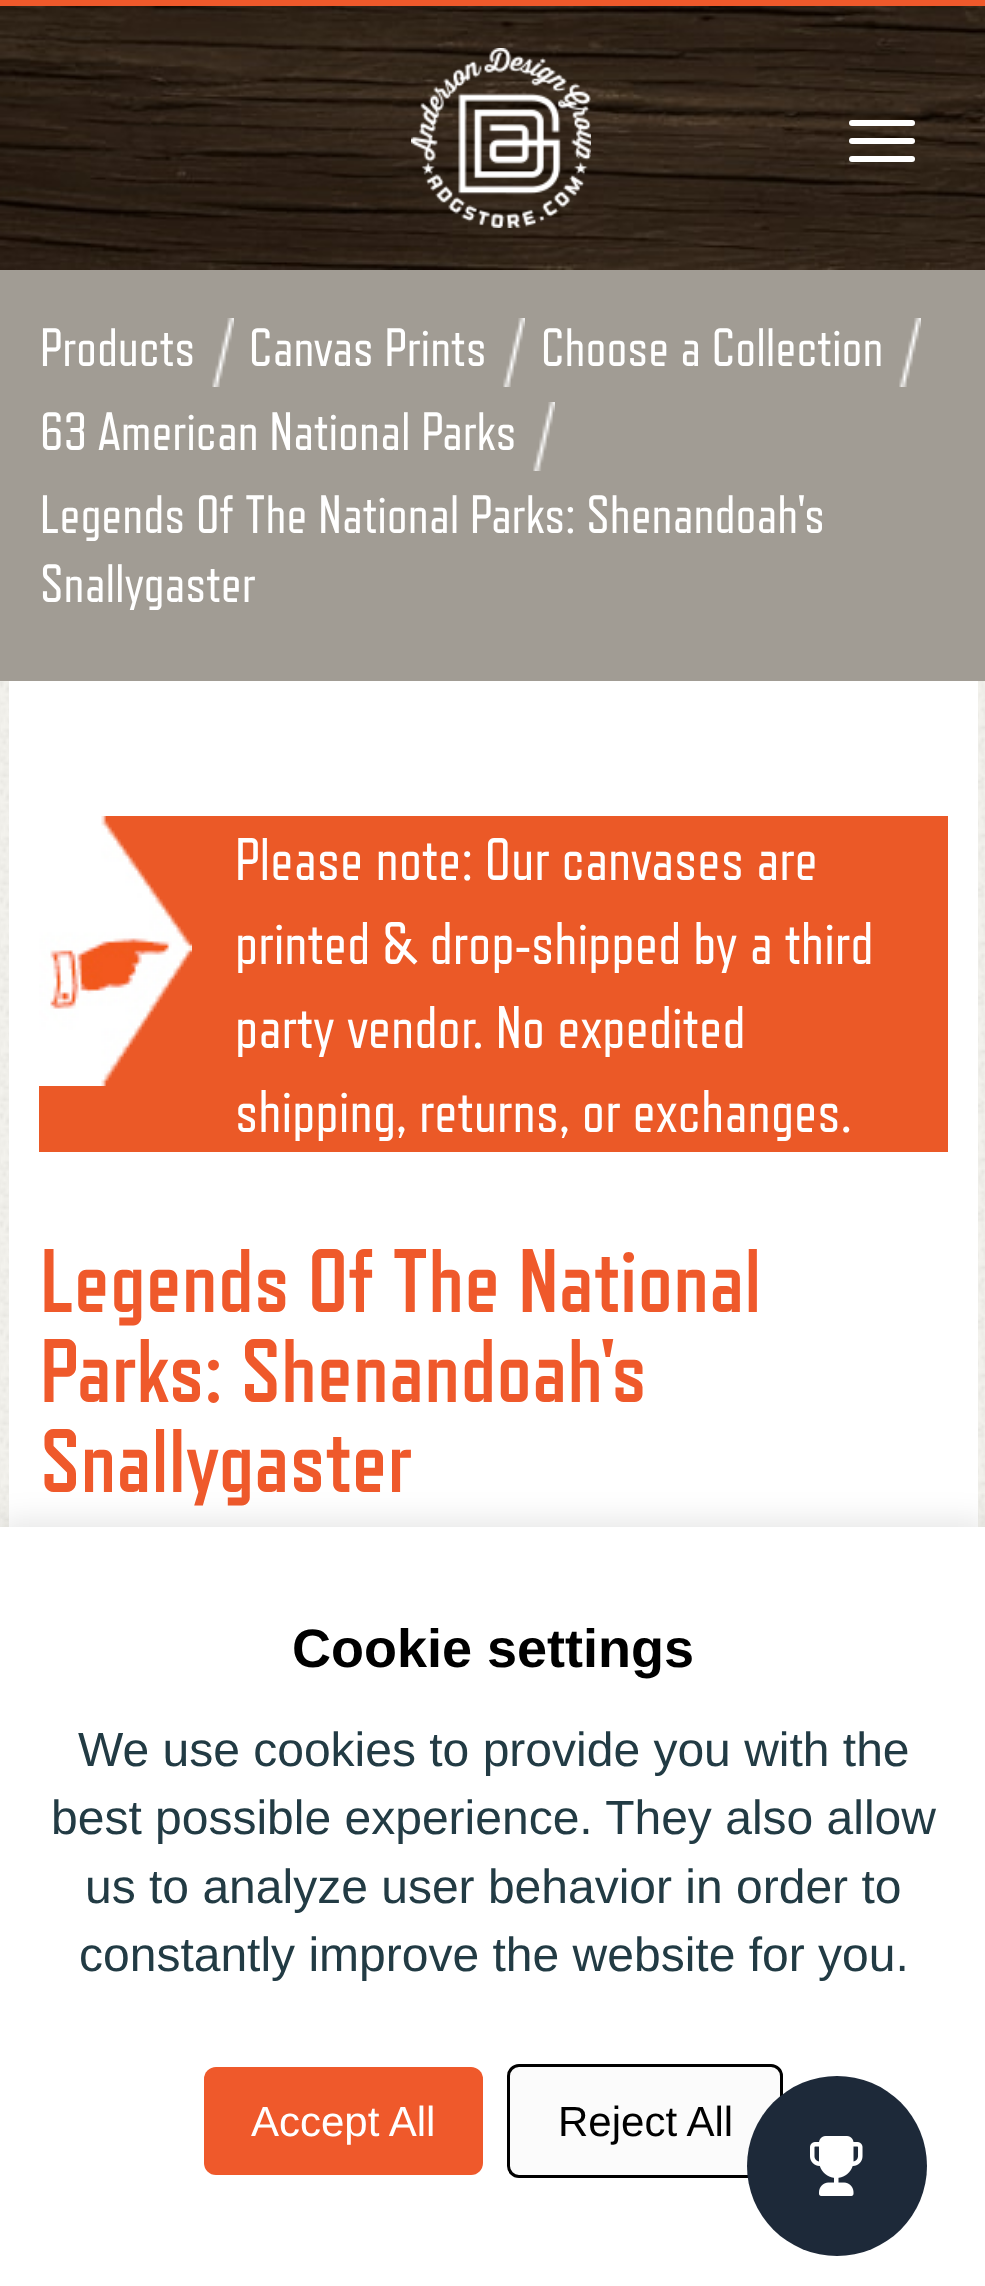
<?xml version="1.0" encoding="UTF-8"?>
<svg xmlns="http://www.w3.org/2000/svg" width="985" height="2286">
    <defs>
        <filter id="blur1" x="-50%" y="-200%" width="200%" height="500%"><feGaussianBlur stdDeviation="15"/></filter>
    </defs>
    <rect width="100%" height="100%" fill="#FFFFFF"/>
    <image x="0" y="6" width="985" height="264" href="img_01.png"/>
    <rect x="0" y="0" width="985" height="6" fill="#EF592B"/>
    <image x="411" y="48" width="180" height="180" href="img_02.png"/>
    <rect x="849" y="120" width="66" height="6" rx="3" fill="#FFFFFF"/>
    <rect x="849" y="138" width="66" height="6" rx="3" fill="#FFFFFF"/>
    <rect x="849" y="156" width="66" height="6" rx="3" fill="#FFFFFF"/>
    <rect x="0" y="270" width="985" height="411" fill="#A19C94"/>
    <image x="212" y="318" width="22" height="69" href="img_03.png"/>
    <text x="40" y="366" font-family="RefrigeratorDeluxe" font-size="54" fill="#FFFFFF">Products</text>
    <image x="503" y="318" width="22" height="69" href="img_04.png"/>
    <text x="249" y="366" font-family="RefrigeratorDeluxe" font-size="54" fill="#FFFFFF">Canvas Prints</text>
    <image x="899" y="318" width="22" height="69" href="img_03.png"/>
    <text x="541" y="366" font-family="RefrigeratorDeluxe" font-size="54" fill="#FFFFFF">Choose a Collection</text>
    <image x="533" y="402" width="22" height="69" href="img_05.png"/>
    <text font-family="RefrigeratorDeluxe" font-size="54" fill="#FFFFFF">
        <tspan x="40" y="450">63 American National Parks</tspan>
        <tspan x="40" y="533">Legends Of The National Parks: Shenandoah's</tspan>
        <tspan x="40" y="602">Snallygaster</tspan>
    </text>
    <image x="0" y="681" width="985" height="846" href="img_06.png"/>
    <rect x="9" y="681" width="969" height="846" fill="#FFFFFF"/>
    <rect x="39" y="816" width="909" height="336" fill="#EB5927"/>
    <image x="39" y="816" width="153" height="270" href="img_07.png"/>
    <text font-family="RefrigeratorDeluxe" font-size="60" fill="#FFFFFF">
        <tspan x="235" y="880">Please note: Our canvases are</tspan>
        <tspan x="235" y="964">printed &amp; drop-shipped by a third</tspan>
        <tspan x="235" y="1048">party vendor. No expedited</tspan>
        <tspan x="235" y="1132">shipping, returns, or exchanges.</tspan>
    </text>
    <text font-family="RefrigeratorDeluxe" font-size="90" font-weight="700" fill="#EF592B">
        <tspan x="40" y="1312">Legends Of The National</tspan>
        <tspan x="40" y="1402">Parks: Shenandoah's</tspan>
        <tspan x="40" y="1492">Snallygaster</tspan>
    </text>
    <rect x="0" y="1521" width="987" height="759" fill="#000000" fill-opacity="0.1" filter="url(#blur1)"/>
    <rect x="0" y="1527" width="985" height="759" fill="#FFFFFF"/>
    <text x="292" y="1667" font-family="Liberation Sans" font-size="54" font-weight="700" fill="#000000">Cookie settings</text>
    <text x="78" y="1766" font-family="Liberation Sans" font-size="48" fill="#223B44">We use cookies to provide you with the</text>
    <text x="51" y="1834" font-family="Liberation Sans" font-size="48" fill="#223B44">best possible experience. They also allow</text>
    <text x="85" y="1903" font-family="Liberation Sans" font-size="48" fill="#223B44">us to analyze user behavior in order to</text>
    <text x="79" y="1971" font-family="Liberation Sans" font-size="48" fill="#223B44">constantly improve the website for you.</text>
    <rect x="204" y="2067" width="279" height="108" rx="12" fill="#EF592B"/>
    <text x="251" y="2136" font-family="Liberation Sans" font-size="42" fill="#FFFFFF">Accept All</text>
    <rect x="508.5" y="2065.5" width="273" height="111" rx="10.5" fill="#FBFBFB" stroke="#000000" stroke-width="3"/>
    <text x="558" y="2136" font-family="Liberation Sans" font-size="42" fill="#000000">Reject All</text>
    <circle cx="837" cy="2166" r="90" fill="#1D2939"/>
    <image x="810" y="2136" width="53" height="60" href="img_08.png"/>
</svg>
